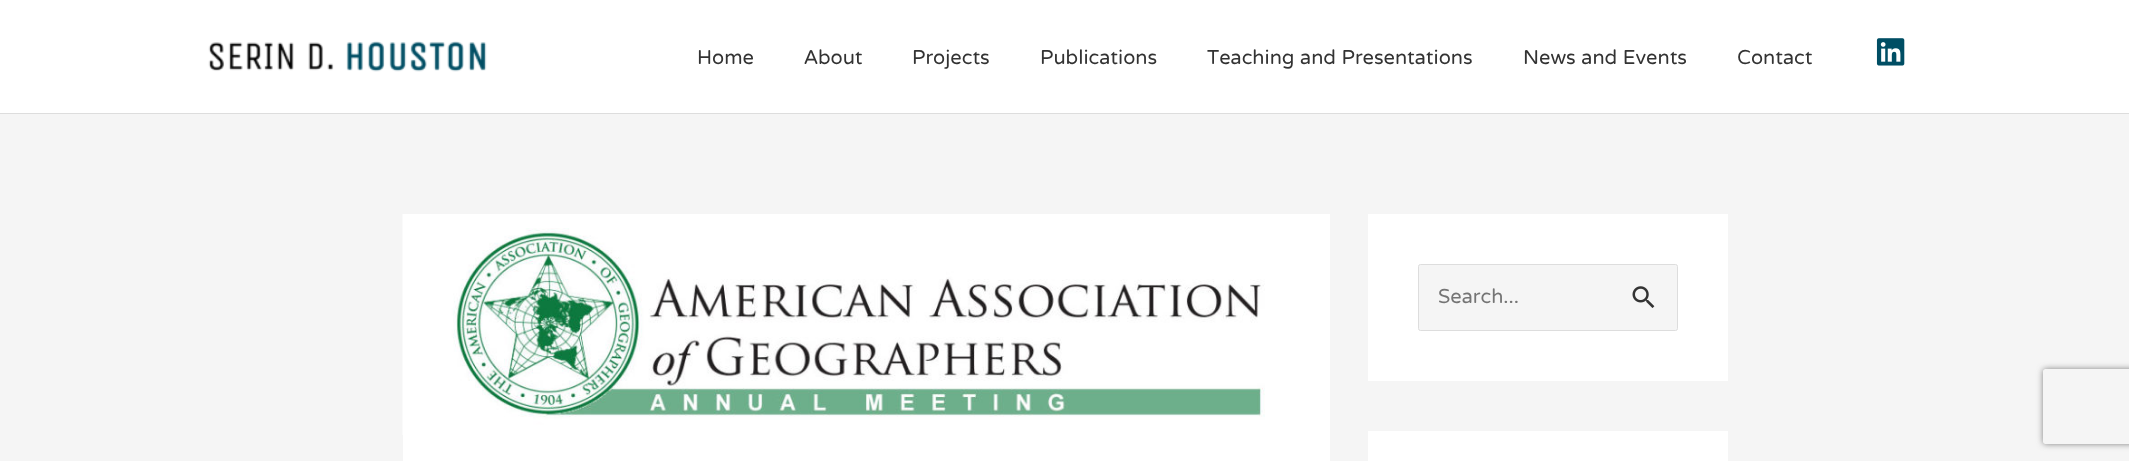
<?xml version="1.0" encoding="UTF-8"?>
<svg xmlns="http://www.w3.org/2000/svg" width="2129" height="461">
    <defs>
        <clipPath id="clip1"><path d="M 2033 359 H 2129 V 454 H 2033 Z M 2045.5 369 H 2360.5 C 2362 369 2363 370 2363 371.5 V 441.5 C 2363 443 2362 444 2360.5 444 H 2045.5 C 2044 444 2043 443 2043 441.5 V 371.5 C 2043 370 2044 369 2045.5 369 Z" clip-rule="evenodd"/></clipPath>
        <filter id="blur1" x="-50%" y="-200%" width="200%" height="500%"><feGaussianBlur stdDeviation="3"/></filter>
    </defs>
    <rect width="100%" height="100%" fill="#F5F5F5"/>
    <rect x="0" y="0" width="2129" height="113" fill="#FFFFFF"/>
    <rect x="0" y="113" width="2129" height="1" fill="#DDDDDD"/>
    <image x="208" y="41" width="279" height="31" href="img_01.png"/>
    <text x="697" y="64" font-family="NTR" font-size="25" fill="#333333">Home</text>
    <text x="804" y="64" font-family="NTR" font-size="25" fill="#333333">About</text>
    <text x="912" y="64" font-family="NTR" font-size="25" fill="#333333">Projects</text>
    <text x="1040" y="64" font-family="NTR" font-size="25" fill="#333333">Publications</text>
    <text x="1207" y="64" font-family="NTR" font-size="25" fill="#333333">Teaching and Presentations</text>
    <text x="1523" y="64" font-family="NTR" font-size="25" fill="#333333">News and Events</text>
    <text x="1737" y="64" font-family="NTR" font-size="25" fill="#333333">Contact</text>
    <image x="1876" y="38" width="29" height="28" href="img_02.png"/>
    <rect x="403" y="214" width="927" height="247" fill="#FFFFFF"/>
    <image x="402" y="214" width="863" height="221" href="img_03.png"/>
    <rect x="1368" y="214" width="360" height="167" fill="#FFFFFF"/>
    <rect x="1418.5" y="264.5" width="259" height="66" rx="2" fill="#F5F5F5" stroke="#DDDDDD"/>
    <text x="1438" y="303" font-family="NTR" font-size="25" fill="#757575">Search...</text>
    <image x="1632" y="286" width="23" height="22" href="img_04.png"/>
    <rect x="1368" y="431" width="360" height="30" fill="#FFFFFF"/>
    <g clip-path="url(#clip1)">
        <rect x="2043" y="369" width="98" height="75" rx="2.5" fill="#808080" filter="url(#blur1)"/>
    </g>
</svg>
